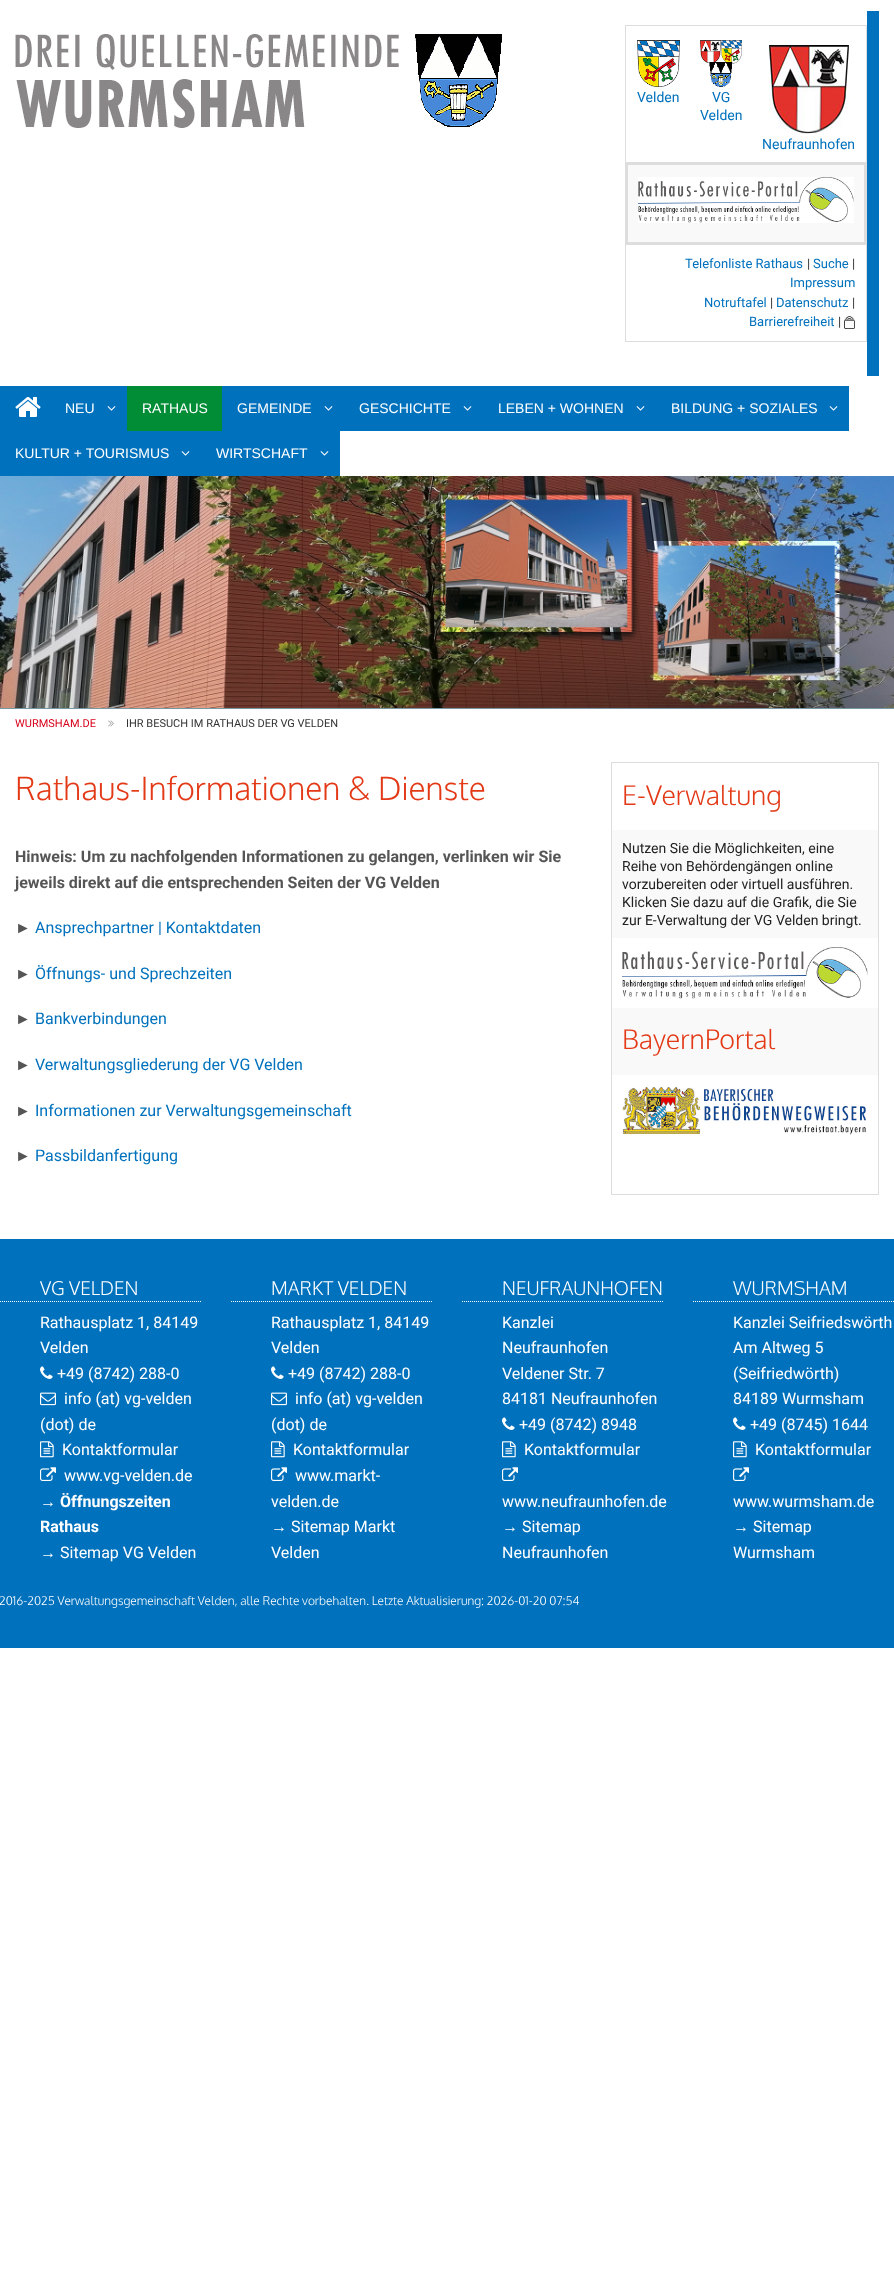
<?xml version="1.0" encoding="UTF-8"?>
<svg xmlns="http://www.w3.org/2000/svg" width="894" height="2271">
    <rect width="100%" height="100%" fill="#FFFFFF"/>
    <image x="15" y="34" width="487" height="95" href="img_01.png"/>
    <rect x="867" y="11" width="12" height="365" fill="#0071BD"/>
    <rect x="625" y="25" width="242" height="1" fill="#DDDDDD"/>
    <rect x="866" y="25" width="1" height="317" fill="#DDDDDD"/>
    <rect x="625" y="341" width="242" height="1" fill="#DDDDDD"/>
    <rect x="625" y="25" width="1" height="317" fill="#DDDDDD"/>
    <image x="637" y="40" width="43" height="47" href="img_02.png"/>
    <text x="637" y="102" font-family="Roboto" font-size="14" fill="#0071BD">Velden</text>
    <image x="700" y="40" width="42" height="47" href="img_03.png"/>
    <text x="712" y="102" font-family="Roboto" font-size="14" fill="#0071BD">VG</text>
    <text x="700" y="120" font-family="Roboto" font-size="14" fill="#0071BD">Velden</text>
    <image x="769" y="45" width="80" height="89" href="img_04.png"/>
    <text x="762" y="149" font-family="Roboto" font-size="14" fill="#0071BD">Neufraunhofen</text>
    <rect x="628" y="165" width="236" height="77" fill="#F9F9F9"/>
    <rect x="625" y="162" width="242" height="3" fill="#DDDDDD"/>
    <rect x="864" y="162" width="2" height="83" fill="#DDDDDD"/>
    <rect x="625" y="242" width="242" height="3" fill="#DDDDDD"/>
    <rect x="626" y="162" width="2" height="83" fill="#DDDDDD"/>
    <image x="638" y="177" width="216" height="46" href="img_05.png"/>
    <text x="685" y="268" font-family="Roboto" font-size="13" fill="#0071BD">Telefonliste Rathaus</text>
    <text x="807" y="268" font-family="Roboto" font-size="13" fill="#333333">|</text>
    <text x="813" y="268" font-family="Roboto" font-size="13" fill="#0071BD">Suche</text>
    <text x="852" y="268" font-family="Roboto" font-size="13" fill="#333333">|</text>
    <text x="790" y="287" font-family="Roboto" font-size="13" fill="#0071BD">Impressum</text>
    <text x="704" y="307" font-family="Roboto" font-size="13" fill="#0071BD">Notruftafel</text>
    <text x="770" y="307" font-family="Roboto" font-size="13" fill="#333333">|</text>
    <text x="776" y="307" font-family="Roboto" font-size="13" fill="#0071BD">Datenschutz</text>
    <text x="852" y="307" font-family="Roboto" font-size="13" fill="#333333">|</text>
    <text x="749" y="326" font-family="Roboto" font-size="13" fill="#0071BD">Barrierefreiheit</text>
    <text x="838" y="326" font-family="Roboto" font-size="13" fill="#333333">|</text>
    <image x="844" y="316" width="11" height="13" href="img_06.png"/>
    <rect x="0" y="386" width="127" height="45" fill="#0071BD"/>
    <image x="15" y="397" width="26" height="20" href="img_07.png"/>
    <text x="65" y="413" font-family="Liberation Sans" font-size="14" fill="#FFFFFF">NEU</text>
    <image x="107" y="406" width="9" height="5" href="img_08.png"/>
    <rect x="127" y="386" width="95" height="45" fill="#008D36"/>
    <text x="142" y="413" font-family="Liberation Sans" font-size="14" fill="#FFFFFF">RATHAUS</text>
    <rect x="222" y="386" width="627" height="45" fill="#0071BD"/>
    <text x="237" y="413" font-family="Liberation Sans" font-size="14" fill="#FFFFFF">GEMEINDE</text>
    <image x="324" y="406" width="9" height="5" href="img_08.png"/>
    <text x="359" y="413" font-family="Liberation Sans" font-size="14" fill="#FFFFFF">GESCHICHTE</text>
    <image x="463" y="406" width="9" height="5" href="img_08.png"/>
    <text x="498" y="413" font-family="Liberation Sans" font-size="14" fill="#FFFFFF">LEBEN + WOHNEN</text>
    <image x="636" y="406" width="9" height="5" href="img_08.png"/>
    <text x="671" y="413" font-family="Liberation Sans" font-size="14" fill="#FFFFFF">BILDUNG + SOZIALES</text>
    <image x="829" y="406" width="9" height="5" href="img_08.png"/>
    <rect x="0" y="431" width="340" height="45" fill="#0071BD"/>
    <text x="15" y="458" font-family="Liberation Sans" font-size="14" fill="#FFFFFF">KULTUR + TOURISMUS</text>
    <image x="181" y="451" width="9" height="5" href="img_08.png"/>
    <text x="216" y="458" font-family="Liberation Sans" font-size="14" fill="#FFFFFF">WIRTSCHAFT</text>
    <image x="320" y="451" width="9" height="5" href="img_08.png"/>
    <rect x="0" y="708" width="894" height="1" fill="#7897A4"/>
    <image x="0" y="476" width="894" height="232" href="img_09.png"/>
    <text x="15" y="727" font-family="Roboto" font-size="11" fill="#D7021B">WURMSHAM.DE</text>
    <image x="108" y="720" width="6" height="7" href="img_10.png"/>
    <text x="126" y="727" font-family="Roboto" font-size="11" fill="#333333">IHR BESUCH IM RATHAUS DER VG VELDEN</text>
    <text x="15" y="800" font-family="Oxygen" font-size="32" font-weight="300" fill="#E33916">Rathaus-Informationen &amp; Dienste</text>
    <text font-family="Roboto" font-size="16" font-weight="700" fill="#555555">
        <tspan x="15" y="862">Hinweis: Um zu nachfolgenden Informationen zu gelangen, verlinken wir Sie</tspan>
        <tspan x="15" y="888">jeweils direkt auf die entsprechenden Seiten der VG Velden</tspan>
    </text>
    <text x="15" y="933" font-family="Liberation Sans" font-size="16" fill="#555555">►</text>
    <text x="35" y="933" font-family="Roboto" font-size="16" fill="#0071BD">Ansprechpartner | Kontaktdaten</text>
    <text x="15" y="979" font-family="Liberation Sans" font-size="16" fill="#555555">►</text>
    <text x="35" y="979" font-family="Roboto" font-size="16" fill="#0071BD">Öffnungs- und Sprechzeiten</text>
    <text x="15" y="1024" font-family="Liberation Sans" font-size="16" fill="#555555">►</text>
    <text x="35" y="1024" font-family="Roboto" font-size="16" fill="#0071BD">Bankverbindungen</text>
    <text x="15" y="1070" font-family="Liberation Sans" font-size="16" fill="#555555">►</text>
    <text x="35" y="1070" font-family="Roboto" font-size="16" fill="#0071BD">Verwaltungsgliederung der VG Velden</text>
    <text x="15" y="1116" font-family="Liberation Sans" font-size="16" fill="#555555">►</text>
    <text x="35" y="1116" font-family="Roboto" font-size="16" fill="#0071BD">Informationen zur Verwaltungsgemeinschaft</text>
    <text x="15" y="1161" font-family="Liberation Sans" font-size="16" fill="#555555">►</text>
    <text x="35" y="1161" font-family="Roboto" font-size="16" fill="#0071BD">Passbildanfertigung</text>
    <rect x="611" y="762" width="268" height="1" fill="#DDDDDD"/>
    <rect x="878" y="762" width="1" height="433" fill="#DDDDDD"/>
    <rect x="611" y="1194" width="268" height="1" fill="#DDDDDD"/>
    <rect x="611" y="762" width="1" height="433" fill="#DDDDDD"/>
    <text x="622" y="805" font-family="Oxygen" font-size="27" font-weight="300" fill="#E33916">E-Verwaltung</text>
    <rect x="612" y="830" width="266" height="108" fill="#F9F9F9"/>
    <text font-family="Roboto" font-size="14" fill="#222222">
        <tspan x="622" y="853">Nutzen Sie die Möglichkeiten, eine</tspan>
        <tspan x="622" y="871">Reihe von Behördengängen online</tspan>
        <tspan x="622" y="889">vorzubereiten oder virtuell ausführen.</tspan>
        <tspan x="622" y="907">Klicken Sie dazu auf die Grafik, die Sie</tspan>
        <tspan x="622" y="925">zur E-Verwaltung der VG Velden bringt.</tspan>
    </text>
    <image x="622" y="947" width="246" height="52" href="img_11.png"/>
    <rect x="612" y="1008" width="266" height="67" fill="#F9F9F9"/>
    <text x="622" y="1049" font-family="Oxygen" font-size="27" font-weight="300" fill="#E33916">BayernPortal</text>
    <image x="622" y="1087" width="244" height="48" href="img_12.png"/>
    <rect x="0" y="1239" width="894" height="409" fill="#0071BD"/>
    <path d="M 0 1301.5 H 201" fill="none" stroke="#FFFFFF" stroke-dasharray="1 1"/>
    <text x="40" y="1295" font-family="Oxygen" font-size="19" font-weight="300" fill="#FFFFFF">VG VELDEN</text>
    <text font-family="Roboto" font-size="16" fill="#FFFFFF">
        <tspan x="40" y="1328">Rathausplatz 1, 84149</tspan>
        <tspan x="40" y="1353">Velden</tspan>
    </text>
    <image x="40" y="1366" width="13" height="13" href="img_13.png"/>
    <text x="57" y="1379" font-family="Roboto" font-size="16" fill="#FFFFFF">+49 (8742) 288-0</text>
    <image x="40" y="1392" width="16" height="14" href="img_14.png"/>
    <text x="64" y="1404" font-family="Roboto" font-size="16" fill="#FFFFFF">info (at) vg-velden</text>
    <text x="40" y="1430" font-family="Roboto" font-size="16" fill="#FFFFFF">(dot) de</text>
    <image x="40" y="1441" width="14" height="17" href="img_15.png"/>
    <text x="62" y="1455" font-family="Roboto" font-size="16" fill="#FFFFFF">Kontaktformular</text>
    <image x="40" y="1467" width="16" height="14" href="img_16.png"/>
    <text x="64" y="1481" font-family="Roboto" font-size="16" fill="#FFFFFF">www.vg-velden.de</text>
    <text x="40" y="1507" font-family="Liberation Sans" font-size="16" fill="#FFFFFF">→</text>
    <text x="60" y="1507" font-family="Roboto" font-size="16" font-weight="700" fill="#FFFFFF">Öffnungszeiten</text>
    <text x="40" y="1532" font-family="Roboto" font-size="16" font-weight="700" fill="#FFFFFF">Rathaus</text>
    <text x="40" y="1558" font-family="Liberation Sans" font-size="16" fill="#FFFFFF">→</text>
    <text x="60" y="1558" font-family="Roboto" font-size="16" fill="#FFFFFF">Sitemap VG Velden</text>
    <path d="M 231 1301.5 H 432" fill="none" stroke="#FFFFFF" stroke-dasharray="1 1"/>
    <text x="271" y="1295" font-family="Oxygen" font-size="19" font-weight="300" fill="#FFFFFF">MARKT VELDEN</text>
    <text font-family="Roboto" font-size="16" fill="#FFFFFF">
        <tspan x="271" y="1328">Rathausplatz 1, 84149</tspan>
        <tspan x="271" y="1353">Velden</tspan>
    </text>
    <image x="271" y="1366" width="13" height="13" href="img_13.png"/>
    <text x="288" y="1379" font-family="Roboto" font-size="16" fill="#FFFFFF">+49 (8742) 288-0</text>
    <image x="271" y="1392" width="16" height="14" href="img_14.png"/>
    <text x="295" y="1404" font-family="Roboto" font-size="16" fill="#FFFFFF">info (at) vg-velden</text>
    <text x="271" y="1430" font-family="Roboto" font-size="16" fill="#FFFFFF">(dot) de</text>
    <image x="271" y="1441" width="14" height="17" href="img_15.png"/>
    <text x="293" y="1455" font-family="Roboto" font-size="16" fill="#FFFFFF">Kontaktformular</text>
    <image x="271" y="1467" width="16" height="14" href="img_16.png"/>
    <text x="295" y="1481" font-family="Roboto" font-size="16" fill="#FFFFFF">www.markt-</text>
    <text x="271" y="1507" font-family="Roboto" font-size="16" fill="#FFFFFF">velden.de</text>
    <text x="271" y="1532" font-family="Liberation Sans" font-size="16" fill="#FFFFFF">→</text>
    <text x="291" y="1532" font-family="Roboto" font-size="16" fill="#FFFFFF">Sitemap Markt</text>
    <text x="271" y="1558" font-family="Roboto" font-size="16" fill="#FFFFFF">Velden</text>
    <path d="M 462 1301.5 H 663" fill="none" stroke="#FFFFFF" stroke-dasharray="1 1"/>
    <text x="502" y="1295" font-family="Oxygen" font-size="19" font-weight="300" fill="#FFFFFF">NEUFRAUNHOFEN</text>
    <text font-family="Roboto" font-size="16" fill="#FFFFFF">
        <tspan x="502" y="1328">Kanzlei</tspan>
        <tspan x="502" y="1353">Neufraunhofen</tspan>
        <tspan x="502" y="1379">Veldener Str. 7</tspan>
        <tspan x="502" y="1404">84181 Neufraunhofen</tspan>
    </text>
    <image x="502" y="1417" width="13" height="13" href="img_13.png"/>
    <text x="519" y="1430" font-family="Roboto" font-size="16" fill="#FFFFFF">+49 (8742) 8948</text>
    <image x="502" y="1441" width="14" height="17" href="img_15.png"/>
    <text x="524" y="1455" font-family="Roboto" font-size="16" fill="#FFFFFF">Kontaktformular</text>
    <image x="502" y="1467" width="16" height="14" href="img_16.png"/>
    <text x="502" y="1507" font-family="Roboto" font-size="16" fill="#FFFFFF">www.neufraunhofen.de</text>
    <text x="502" y="1532" font-family="Liberation Sans" font-size="16" fill="#FFFFFF">→</text>
    <text x="522" y="1532" font-family="Roboto" font-size="16" fill="#FFFFFF">Sitemap</text>
    <text x="502" y="1558" font-family="Roboto" font-size="16" fill="#FFFFFF">Neufraunhofen</text>
    <path d="M 693 1301.5 H 894" fill="none" stroke="#FFFFFF" stroke-dasharray="1 1"/>
    <text x="733" y="1295" font-family="Oxygen" font-size="19" font-weight="300" fill="#FFFFFF">WURMSHAM</text>
    <text font-family="Roboto" font-size="16" fill="#FFFFFF">
        <tspan x="733" y="1328">Kanzlei Seifriedswörth</tspan>
        <tspan x="733" y="1353">Am Altweg 5</tspan>
        <tspan x="733" y="1379">(Seifriedwörth)</tspan>
        <tspan x="733" y="1404">84189 Wurmsham</tspan>
    </text>
    <image x="733" y="1417" width="13" height="13" href="img_13.png"/>
    <text x="750" y="1430" font-family="Roboto" font-size="16" fill="#FFFFFF">+49 (8745) 1644</text>
    <image x="733" y="1441" width="14" height="17" href="img_15.png"/>
    <text x="755" y="1455" font-family="Roboto" font-size="16" fill="#FFFFFF">Kontaktformular</text>
    <image x="733" y="1467" width="16" height="14" href="img_16.png"/>
    <text x="733" y="1507" font-family="Roboto" font-size="16" fill="#FFFFFF">www.wurmsham.de</text>
    <text x="733" y="1532" font-family="Liberation Sans" font-size="16" fill="#FFFFFF">→</text>
    <text x="753" y="1532" font-family="Roboto" font-size="16" fill="#FFFFFF">Sitemap</text>
    <text x="733" y="1558" font-family="Roboto" font-size="16" fill="#FFFFFF">Wurmsham</text>
    <text x="-1" y="1605" font-family="Oxygen" font-size="12" font-weight="300" fill="#FFFFFF">2016-2025 Verwaltungsgemeinschaft Velden, alle Rechte vorbehalten. Letzte Aktualisierung: 2026-01-20 07:54</text>
</svg>
